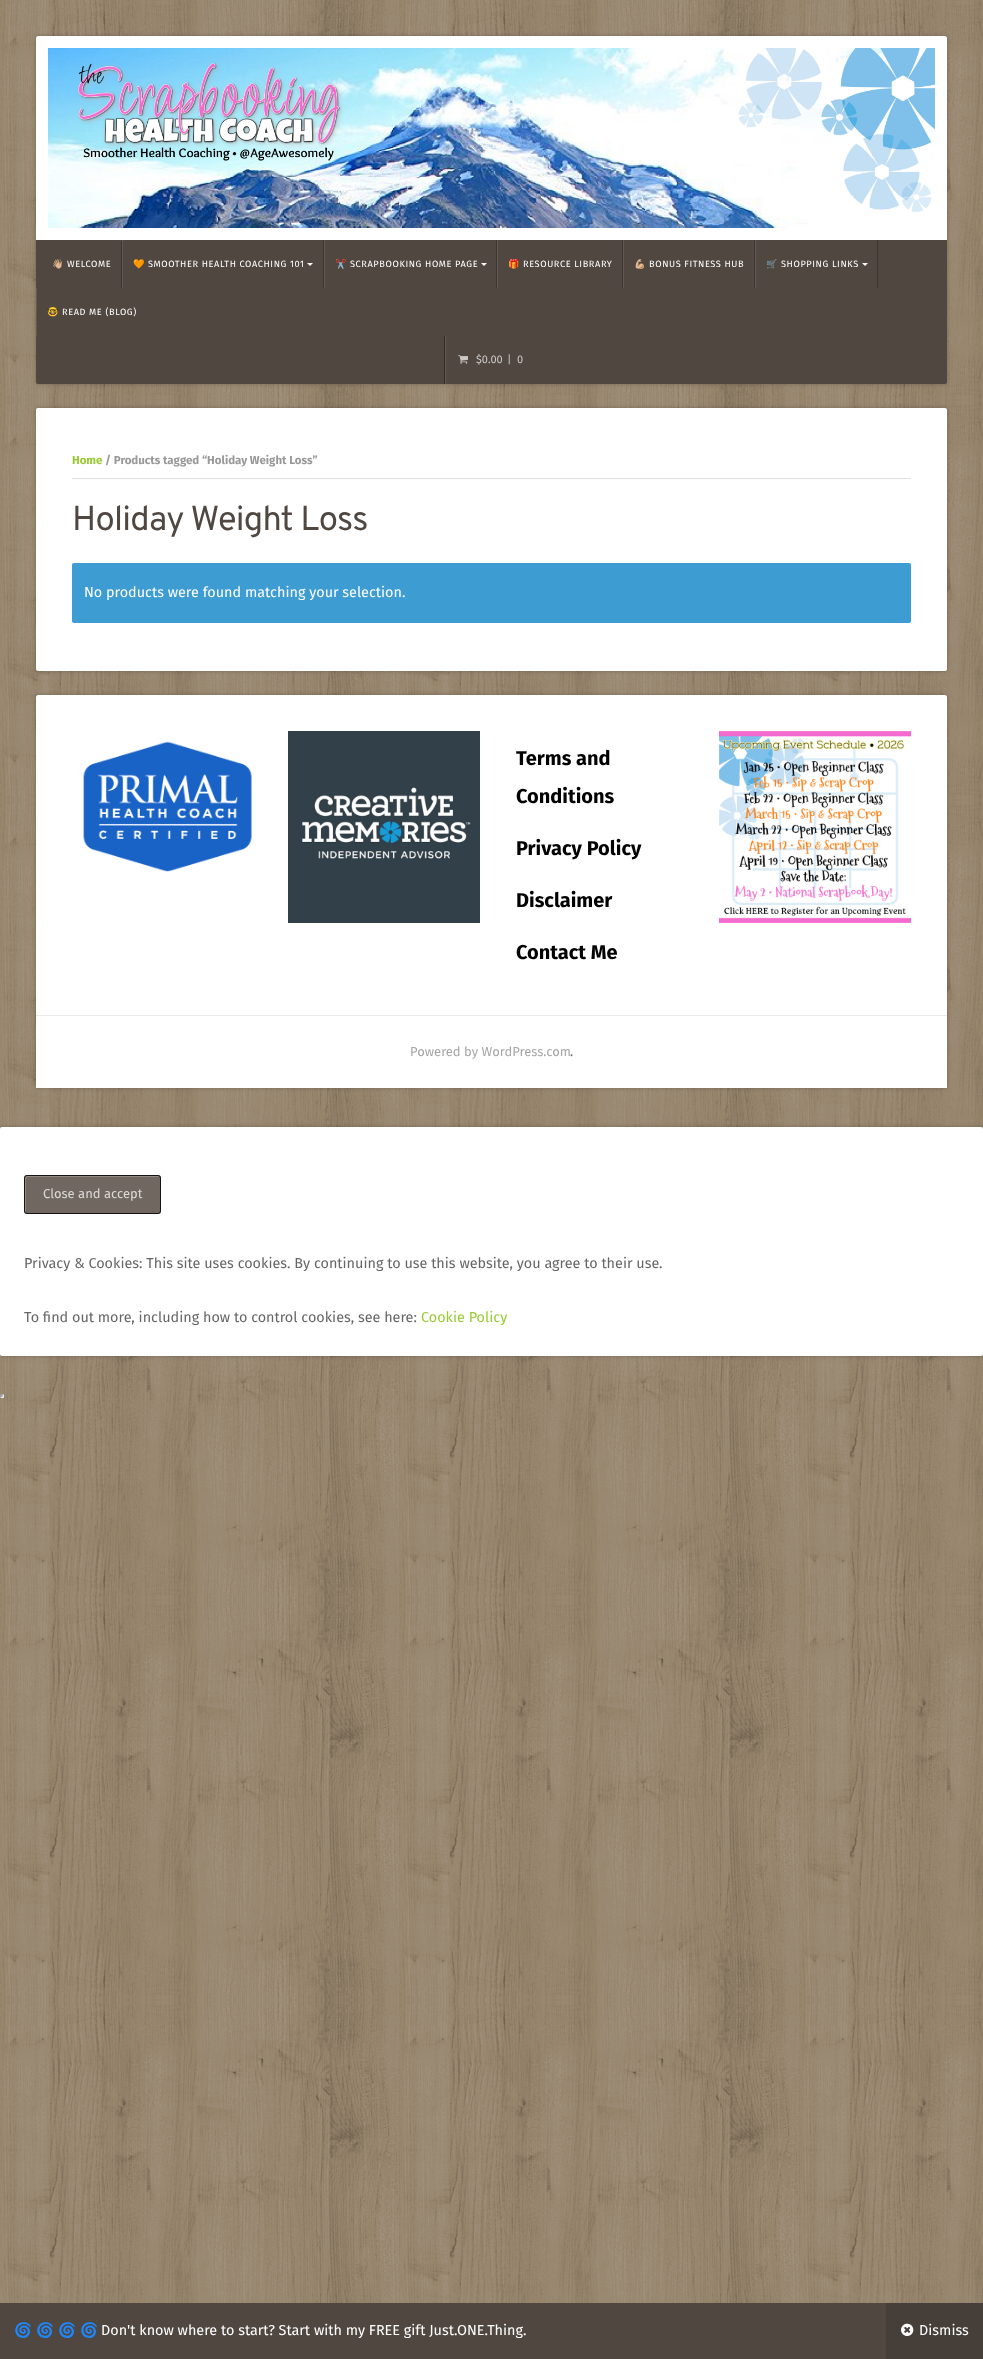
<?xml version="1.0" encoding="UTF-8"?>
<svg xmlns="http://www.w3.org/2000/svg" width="983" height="2359">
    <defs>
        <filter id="blur1" x="-50%" y="-200%" width="200%" height="500%"><feGaussianBlur stdDeviation="2"/></filter>
    </defs>
    <rect width="100%" height="100%" fill="#FFFFFF"/>
    <image x="0" y="0" width="983" height="2303" href="img_01.png"/>
    <rect x="36" y="36" width="911" height="348" rx="2" fill="#000000" fill-opacity="0.24" filter="url(#blur1)"/>
    <path d="M 38 36 H 945 C 946 36 947 37 947 38 V 240 H 36 V 38 C 36 37 37 36 38 36 Z" fill="#FFFFFF"/>
    <image x="48" y="48" width="887" height="180" href="img_02.png"/>
    <path d="M 36 240 H 947 V 382 C 947 383 946 384 945 384 H 38 C 37 384 36 383 36 382 Z" fill="#504741"/>
    <rect x="121" y="241" width="1" height="47" fill="#3C3531"/>
    <text x="52" y="267" font-family="Noto Color Emoji" font-size="9.2" letter-spacing="0.6" fill="#FFFFFF">👋🏼</text>
    <text x="67" y="267" font-family="Fira Sans" font-size="9.2" letter-spacing="0.6" fill="#FFFFFF">WELCOME</text>
    <rect x="323" y="240" width="1" height="48" fill="#3C3531"/>
    <rect x="122" y="240" width="1" height="48" fill="#625954"/>
    <text x="133" y="267" font-family="Noto Color Emoji" font-size="9.2" letter-spacing="0.6" fill="#FFFFFF">🧡</text>
    <text x="148" y="267" font-family="Fira Sans" font-size="9.2" letter-spacing="0.6" fill="#FFFFFF">SMOOTHER HEALTH COACHING 101</text>
    <path d="M 307 263 H 313 L 310 266 Z" fill="#FFFFFF"/>
    <rect x="496" y="240" width="1" height="48" fill="#3C3531"/>
    <rect x="324" y="240" width="1" height="48" fill="#625954"/>
    <text x="335" y="267" font-family="Noto Color Emoji" font-size="9.2" letter-spacing="0.6" fill="#FFFFFF">✂️</text>
    <text x="350" y="267" font-family="Fira Sans" font-size="9.2" letter-spacing="0.6" fill="#FFFFFF">SCRAPBOOKING HOME PAGE</text>
    <path d="M 481 263 H 487 L 484 266 Z" fill="#FFFFFF"/>
    <rect x="622" y="240" width="1" height="48" fill="#3C3531"/>
    <rect x="497" y="240" width="1" height="48" fill="#625954"/>
    <text x="508" y="267" font-family="Noto Color Emoji" font-size="9.2" letter-spacing="0.6" fill="#FFFFFF">🎁</text>
    <text x="523" y="267" font-family="Fira Sans" font-size="9.2" letter-spacing="0.6" fill="#FFFFFF">RESOURCE LIBRARY</text>
    <rect x="754" y="240" width="1" height="48" fill="#3C3531"/>
    <rect x="623" y="240" width="1" height="48" fill="#625954"/>
    <text x="634" y="267" font-family="Noto Color Emoji" font-size="9.2" letter-spacing="0.6" fill="#FFFFFF">💪🏼</text>
    <text x="649" y="267" font-family="Fira Sans" font-size="9.2" letter-spacing="0.6" fill="#FFFFFF">BONUS FITNESS HUB</text>
    <rect x="877" y="240" width="1" height="48" fill="#3C3531"/>
    <rect x="755" y="240" width="1" height="48" fill="#625954"/>
    <text x="766" y="267" font-family="Noto Color Emoji" font-size="9.2" letter-spacing="0.6" fill="#FFFFFF">🛒</text>
    <text x="781" y="267" font-family="Fira Sans" font-size="9.2" letter-spacing="0.6" fill="#FFFFFF">SHOPPING LINKS</text>
    <path d="M 862 263 H 868 L 865 266 Z" fill="#FFFFFF"/>
    <rect x="36" y="288" width="1" height="48" fill="#625954"/>
    <text x="47" y="315" font-family="Noto Color Emoji" font-size="9.2" letter-spacing="0.6" fill="#FFFFFF">🤓</text>
    <text x="62" y="315" font-family="Fira Sans" font-size="9.2" letter-spacing="0.6" fill="#FFFFFF">READ ME (BLOG)</text>
    <rect x="444" y="336" width="1" height="48" fill="#302B27"/>
    <rect x="445" y="336" width="1" height="48" fill="#625954"/>
    <image x="458" y="355" width="10" height="9" href="img_03.png"/>
    <text x="476" y="363" font-family="Fira Sans" font-size="11" fill="#CBC8C6">$0.00</text>
    <text x="507" y="363" font-family="Fira Sans" font-size="11" fill="#CBC8C6">|</text>
    <text x="517" y="363" font-family="Fira Sans" font-size="11" fill="#CBC8C6">0</text>
    <rect x="36" y="408" width="911" height="263" rx="2" fill="#000000" fill-opacity="0.24" filter="url(#blur1)"/>
    <rect x="36" y="408" width="911" height="263" rx="2" fill="#FFFFFF"/>
    <rect x="72" y="478" width="839" height="1" fill="#E0E0E0"/>
    <text x="72" y="464" font-family="Fira Sans" font-size="11.5" font-weight="700" fill="#99CC33">Home</text>
    <text x="105" y="464" font-family="Fira Sans" font-size="11.5" font-weight="700" fill="#999999">/ Products tagged “Holiday Weight Loss”</text>
    <text x="72" y="530" font-family="Overpass" font-size="34.5" letter-spacing="-0.75" fill="#504741">Holiday Weight Loss</text>
    <rect x="72" y="563" width="839" height="60" rx="2" fill="#3D9CD2"/>
    <text x="84" y="597" font-family="Fira Sans" font-size="14.4" fill="#FFFFFF">No products were found matching your selection.</text>
    <rect x="36" y="695" width="911" height="393" rx="2" fill="#000000" fill-opacity="0.24" filter="url(#blur1)"/>
    <path d="M 38 695 H 945 C 946 695 947 696 947 697 V 1088 H 36 V 697 C 36 696 37 695 38 695 Z" fill="#FFFFFF"/>
    <rect x="36" y="1015" width="911" height="1" fill="#EBEBEB"/>
    <image x="83" y="741" width="169" height="131" href="img_04.png"/>
    <image x="288" y="731" width="192" height="192" href="img_05.png"/>
    <text font-family="Fira Sans" font-size="20" font-weight="700" fill="#000000">
        <tspan x="516" y="765">Terms and</tspan>
        <tspan x="516" y="803">Conditions</tspan>
    </text>
    <text x="516" y="855" font-family="Fira Sans" font-size="20" font-weight="700" fill="#000000">Privacy Policy</text>
    <text x="516" y="907" font-family="Fira Sans" font-size="20" font-weight="700" fill="#000000">Disclaimer</text>
    <text x="516" y="959" font-family="Fira Sans" font-size="20" font-weight="700" fill="#000000">Contact Me</text>
    <image x="719" y="731" width="192" height="192" href="img_06.png"/>
    <text x="410" y="1056" font-family="Fira Sans" font-size="13" fill="#A6A6A6">Powered by WordPress.com</text>
    <text x="570" y="1056" font-family="Fira Sans" font-size="13" fill="#666666">.</text>
    <rect x="0" y="1127" width="983" height="229" rx="2" fill="#000000" fill-opacity="0.24" filter="url(#blur1)"/>
    <rect x="0" y="1127" width="983" height="229" rx="2" fill="#FFFFFF"/>
    <rect x="24" y="1175" width="137" height="39" rx="3" fill="#706760"/>
    <path d="M 28 1177 H 160 C 160 1177 159 1176 158 1176 H 27 C 26 1176 25 1177 25 1178 V 1211 C 25 1212 26 1213 26 1213 V 1184 C 26 1184 25 1177 28 1177 Z" fill="#928B86"/>
    <rect x="24.5" y="1175.5" width="136" height="38" rx="2.5" fill="none" stroke="#000000" stroke-opacity="0.8"/>
    <text x="43" y="1198" font-family="Fira Sans" font-size="13" fill="#DBD9D7">Close and accept</text>
    <text x="24" y="1268" font-family="Fira Sans" font-size="14.4" fill="#666666">Privacy &amp; Cookies: This site uses cookies. By continuing to use this website, you agree to their use.</text>
    <text x="24" y="1322" font-family="Fira Sans" font-size="14.4" fill="#666666">To find out more, including how to control cookies, see here:</text>
    <text x="421" y="1322" font-family="Fira Sans" font-size="14.4" fill="#99CC33">Cookie Policy</text>
    <path d="M 0 1394 H 4 L 2 1396 Z" fill="#9F9F9F"/>
    <path d="M 4 1394 V 1398 L 2 1396 Z" fill="#EEEEEE"/>
    <path d="M 4 1398 H 0 L 2 1396 Z" fill="#EEEEEE"/>
    <path d="M 0 1398 V 1394 L 2 1396 Z" fill="#9F9F9F"/>
    <rect x="0" y="2303" width="886" height="56" fill="#504741"/>
    <text x="14" y="2335" font-family="Noto Color Emoji" font-size="14.4" fill="#FFFFFF">🌀</text>
    <text x="36" y="2335" font-family="Noto Color Emoji" font-size="14.4" fill="#FFFFFF">🌀</text>
    <text x="58" y="2335" font-family="Noto Color Emoji" font-size="14.4" fill="#FFFFFF">🌀</text>
    <text x="80" y="2335" font-family="Noto Color Emoji" font-size="14.4" fill="#FFFFFF">🌀</text>
    <text x="101" y="2335" font-family="Fira Sans" font-size="14.4" fill="#FFFFFF">Don't know where to start? Start with my FREE gift Just.ONE.Thing.</text>
    <rect x="886" y="2303" width="97" height="56" fill="#463E39"/>
    <image x="901" y="2323" width="13" height="13" href="img_07.png"/>
    <text x="919" y="2335" font-family="Fira Sans" font-size="14.4" fill="#FFFFFF">Dismiss</text>
</svg>
